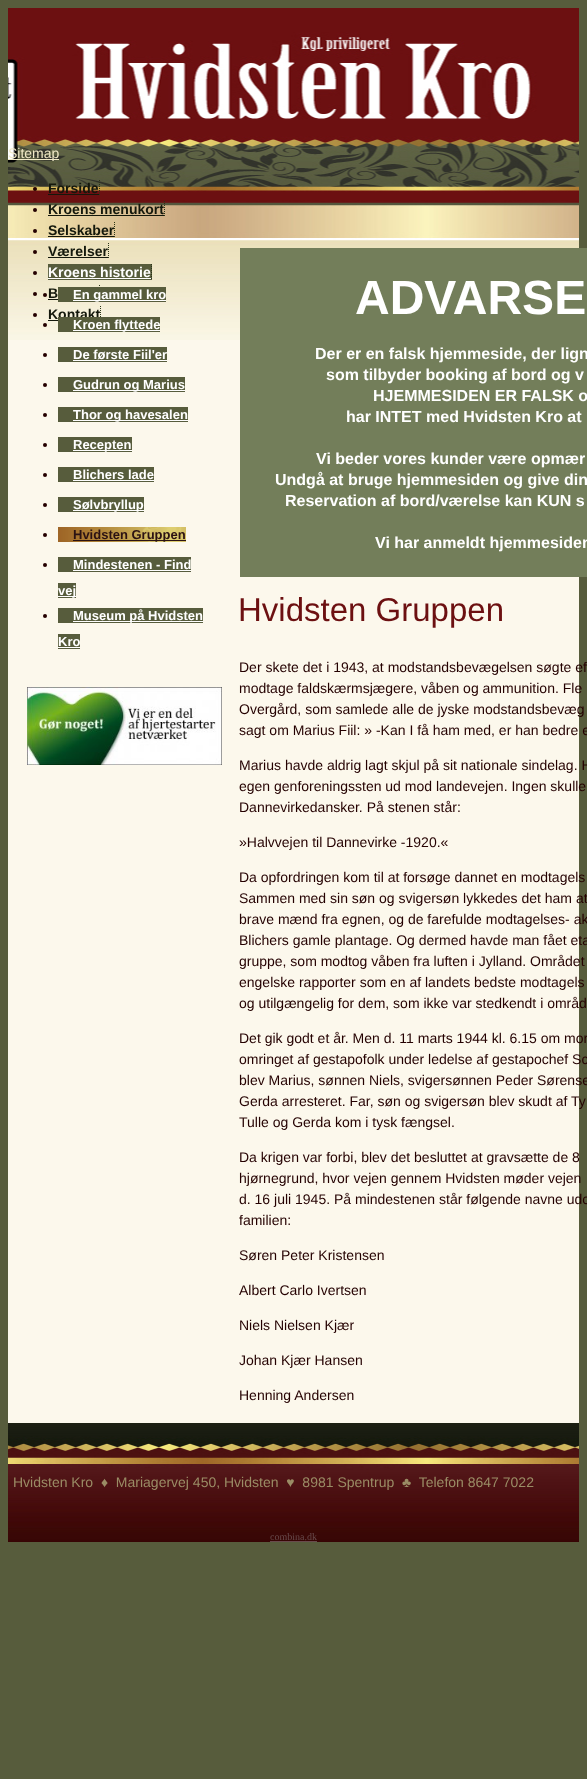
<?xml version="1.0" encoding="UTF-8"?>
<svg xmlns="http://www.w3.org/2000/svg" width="587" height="1779">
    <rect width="100%" height="100%" fill="#575C3C"/>
    <rect x="8" y="340" width="571" height="1083" fill="#FCF8EC"/>
    <image x="8" y="1423" width="571" height="119" href="img_01.png"/>
    <image x="8" y="8" width="571" height="332" href="img_02.png"/>
    <rect x="8" y="159" width="51" height="1" fill="#F0E9C7"/>
    <text x="8" y="158" font-family="Liberation Sans" font-size="14" fill="#F0E9C7">Sitemap</text>
    <circle cx="35" cy="189" r="2" fill="#240000"/>
    <text x="48" y="193" font-family="Liberation Sans" font-size="14" font-weight="700" fill="#14180C">Forside</text>
    <path d="M 99.5 180 V 196" fill="none" stroke="#2C3518" stroke-dasharray="1 1"/>
    <rect x="48" y="194" width="51" height="1" fill="#14180C"/>
    <circle cx="35" cy="210" r="2" fill="#240000"/>
    <text x="48" y="214" font-family="Liberation Sans" font-size="14" font-weight="700" fill="#14180C">Kroens menukort</text>
    <path d="M 164.5 201 V 217" fill="none" stroke="#2C3518" stroke-dasharray="1 1"/>
    <rect x="48" y="215" width="116" height="1" fill="#14180C"/>
    <circle cx="35" cy="231" r="2" fill="#240000"/>
    <text x="48" y="235" font-family="Liberation Sans" font-size="14" font-weight="700" fill="#14180C">Selskaber</text>
    <path d="M 114.5 222 V 238" fill="none" stroke="#2C3518" stroke-dasharray="1 1"/>
    <rect x="48" y="236" width="66" height="1" fill="#14180C"/>
    <circle cx="35" cy="252" r="2" fill="#240000"/>
    <text x="48" y="256" font-family="Liberation Sans" font-size="14" font-weight="700" fill="#14180C">Værelser</text>
    <path d="M 108.5 243 V 259" fill="none" stroke="#2C3518" stroke-dasharray="1 1"/>
    <rect x="48" y="257" width="60" height="1" fill="#14180C"/>
    <circle cx="35" cy="273" r="2" fill="#240000"/>
    <rect x="48" y="264" width="104" height="16" fill="#575C3C"/>
    <text x="48" y="277" font-family="Liberation Sans" font-size="14" font-weight="700" fill="#FFFFFF">Kroens historie</text>
    <path d="M 151.5 264 V 280" fill="none" stroke="#2C3518" stroke-dasharray="1 1"/>
    <rect x="48" y="278" width="103" height="1" fill="#FFFFFF"/>
    <circle cx="35" cy="294" r="2" fill="#240000"/>
    <text x="48" y="298" font-family="Liberation Sans" font-size="14" font-weight="700" fill="#14180C">B</text>
    <path d="M 99.5 285 V 301" fill="none" stroke="#2C3518" stroke-dasharray="1 1"/>
    <rect x="48" y="299" width="10" height="1" fill="#14180C"/>
    <circle cx="35" cy="315" r="2" fill="#240000"/>
    <text x="48" y="319" font-family="Liberation Sans" font-size="14" font-weight="700" fill="#14180C">Kontakt</text>
    <path d="M 100.5 306 V 322" fill="none" stroke="#2C3518" stroke-dasharray="1 1"/>
    <rect x="48" y="320" width="10" height="1" fill="#14180C"/>
    <circle cx="45" cy="295" r="2" fill="#240000"/>
    <rect x="58" y="287" width="108" height="15" fill="#575C3C"/>
    <rect x="73" y="300" width="93" height="1" fill="#FFFFFF"/>
    <text x="73" y="299" font-family="Liberation Sans" font-size="13" font-weight="700" fill="#FFFFFF">En gammel kro</text>
    <circle cx="45" cy="325" r="2" fill="#240000"/>
    <rect x="58" y="317" width="102" height="15" fill="#575C3C"/>
    <rect x="73" y="330" width="87" height="1" fill="#FFFFFF"/>
    <text x="73" y="329" font-family="Liberation Sans" font-size="13" font-weight="700" fill="#FFFFFF">Kroen flyttede</text>
    <circle cx="45" cy="355" r="2" fill="#240000"/>
    <rect x="58" y="347" width="109" height="15" fill="#575C3C"/>
    <text x="73" y="359" font-family="Liberation Sans" font-size="13" font-weight="700" fill="#FFFFFF">De første Fiil'er</text>
    <rect x="73" y="360" width="94" height="1" fill="#FFFFFF"/>
    <circle cx="45" cy="385" r="2" fill="#240000"/>
    <rect x="58" y="377" width="127" height="15" fill="#575C3C"/>
    <rect x="73" y="390" width="112" height="1" fill="#FFFFFF"/>
    <text x="73" y="389" font-family="Liberation Sans" font-size="13" font-weight="700" fill="#FFFFFF">Gudrun og Marius</text>
    <circle cx="45" cy="415" r="2" fill="#240000"/>
    <rect x="58" y="407" width="130" height="15" fill="#575C3C"/>
    <rect x="73" y="420" width="115" height="1" fill="#FFFFFF"/>
    <text x="73" y="419" font-family="Liberation Sans" font-size="13" font-weight="700" fill="#FFFFFF">Thor og havesalen</text>
    <circle cx="45" cy="445" r="2" fill="#240000"/>
    <rect x="58" y="437" width="74" height="15" fill="#575C3C"/>
    <rect x="73" y="450" width="59" height="1" fill="#FFFFFF"/>
    <text x="73" y="449" font-family="Liberation Sans" font-size="13" font-weight="700" fill="#FFFFFF">Recepten</text>
    <circle cx="45" cy="475" r="2" fill="#240000"/>
    <rect x="58" y="467" width="96" height="15" fill="#575C3C"/>
    <text x="73" y="479" font-family="Liberation Sans" font-size="13" font-weight="700" fill="#FFFFFF">Blichers lade</text>
    <rect x="73" y="480" width="81" height="1" fill="#FFFFFF"/>
    <circle cx="45" cy="505" r="2" fill="#240000"/>
    <rect x="58" y="497" width="86" height="15" fill="#575C3C"/>
    <rect x="73" y="510" width="71" height="1" fill="#FFFFFF"/>
    <text x="73" y="509" font-family="Liberation Sans" font-size="13" font-weight="700" fill="#FFFFFF">Sølvbryllup</text>
    <image x="58" y="527" width="128" height="15" href="img_03.png"/>
    <circle cx="45" cy="535" r="2" fill="#240000"/>
    <rect x="73" y="540" width="113" height="1" fill="#2B1213"/>
    <text x="73" y="539" font-family="Liberation Sans" font-size="13" font-weight="700" fill="#2B1213">Hvidsten Gruppen</text>
    <circle cx="45" cy="565" r="2" fill="#240000"/>
    <rect x="58" y="557" width="133" height="15" fill="#575C3C"/>
    <text x="73" y="569" font-family="Liberation Sans" font-size="13" font-weight="700" fill="#FFFFFF">Mindestenen - Find</text>
    <rect x="73" y="570" width="118" height="1" fill="#FFFFFF"/>
    <rect x="58" y="583" width="18" height="15" fill="#575C3C"/>
    <rect x="58" y="596" width="18" height="1" fill="#FFFFFF"/>
    <text x="58" y="595" font-family="Liberation Sans" font-size="13" font-weight="700" fill="#FFFFFF">vej</text>
    <circle cx="45" cy="616" r="2" fill="#240000"/>
    <rect x="58" y="608" width="145" height="15" fill="#575C3C"/>
    <rect x="73" y="621" width="130" height="1" fill="#FFFFFF"/>
    <text x="73" y="620" font-family="Liberation Sans" font-size="13" font-weight="700" fill="#FFFFFF">Museum på Hvidsten</text>
    <rect x="58" y="634" width="22" height="15" fill="#575C3C"/>
    <text x="58" y="646" font-family="Liberation Sans" font-size="13" font-weight="700" fill="#FFFFFF">Kro</text>
    <rect x="58" y="647" width="22" height="1" fill="#FFFFFF"/>
    <image x="27" y="687" width="195" height="78" href="img_04.png"/>
    <rect x="240" y="248" width="347" height="329" fill="#737E5A"/>
    <text x="355" y="314" font-family="Liberation Sans" font-size="48" font-weight="700" fill="#FFFFFF">ADVARSE</text>
    <text x="315" y="359" font-family="Liberation Sans" font-size="16" font-weight="700" fill="#FFFFFF">Der er en falsk hjemmeside, der lign</text>
    <text x="326" y="380" font-family="Liberation Sans" font-size="16" font-weight="700" fill="#FFFFFF">som tilbyder booking af bord og v</text>
    <text x="373" y="401" font-family="Liberation Sans" font-size="16" font-weight="700" fill="#FFFFFF">HJEMMESIDEN ER FALSK o</text>
    <text x="346" y="422" font-family="Liberation Sans" font-size="16" font-weight="700" fill="#FFFFFF">har INTET med Hvidsten Kro at</text>
    <text x="316" y="464" font-family="Liberation Sans" font-size="16" font-weight="700" fill="#FFFFFF">Vi beder vores kunder være opmær</text>
    <text x="275" y="485" font-family="Liberation Sans" font-size="16" font-weight="700" fill="#FFFFFF">Undgå at bruge hjemmesiden og give din</text>
    <text x="285" y="506" font-family="Liberation Sans" font-size="16" font-weight="700" fill="#FFFFFF">Reservation af bord/værelse kan KUN s</text>
    <text x="375" y="548" font-family="Liberation Sans" font-size="16" font-weight="700" fill="#FFFFFF">Vi har anmeldt hjemmesiden</text>
    <text x="238" y="621" font-family="Liberation Sans" font-size="33" fill="#6C1011">Hvidsten Gruppen</text>
    <text font-family="Liberation Sans" font-size="14" fill="#240000">
        <tspan x="239" y="672">Der skete det i 1943, at modstandsbevægelsen søgte ef</tspan>
        <tspan x="239" y="693">modtage faldskærmsjægere, våben og ammunition. Fle</tspan>
        <tspan x="239" y="714">Overgård, som samlede alle de jyske modstandsbevæg</tspan>
        <tspan x="239" y="735">sagt om Marius Fiil: » -Kan I få ham med, er han bedre e</tspan>
    </text>
    <text font-family="Liberation Sans" font-size="14" fill="#240000">
        <tspan x="239" y="770">Marius havde aldrig lagt skjul på sit nationale sindelag. H</tspan>
        <tspan x="239" y="791">egen genforeningssten ud mod landevejen. Ingen skulle</tspan>
        <tspan x="239" y="812">Dannevirkedansker. På stenen står:</tspan>
    </text>
    <text x="239" y="847" font-family="Liberation Sans" font-size="14" fill="#240000">»Halvvejen til Dannevirke -1920.«</text>
    <text font-family="Liberation Sans" font-size="14" fill="#240000">
        <tspan x="239" y="882">Da opfordringen kom til at forsøge dannet en modtagels</tspan>
        <tspan x="239" y="903">Sammen med sin søn og svigersøn lykkedes det ham at</tspan>
        <tspan x="239" y="924">brave mænd fra egnen, og de farefulde modtagelses- ak</tspan>
        <tspan x="239" y="945">Blichers gamle plantage. Og dermed havde man fået eta</tspan>
        <tspan x="239" y="966">gruppe, som modtog våben fra luften i Jylland. Området</tspan>
        <tspan x="239" y="987">engelske rapporter som en af landets bedste modtagels</tspan>
        <tspan x="239" y="1008">og utilgængelig for dem, som ikke var stedkendt i områd</tspan>
    </text>
    <text font-family="Liberation Sans" font-size="14" fill="#240000">
        <tspan x="239" y="1043">Det gik godt et år. Men d. 11 marts 1944 kl. 6.15 om mor</tspan>
        <tspan x="239" y="1064">omringet af gestapofolk under ledelse af gestapochef Sc</tspan>
        <tspan x="239" y="1085">blev Marius, sønnen Niels, svigersønnen Peder Sørense</tspan>
        <tspan x="239" y="1106">Gerda arresteret. Far, søn og svigersøn blev skudt af Ty</tspan>
        <tspan x="239" y="1127">Tulle og Gerda kom i tysk fængsel.</tspan>
    </text>
    <text font-family="Liberation Sans" font-size="14" fill="#240000">
        <tspan x="239" y="1162">Da krigen var forbi, blev det besluttet at gravsætte de 8</tspan>
        <tspan x="239" y="1183">hjørnegrund, hvor vejen gennem Hvidsten møder vejen</tspan>
        <tspan x="239" y="1204">d. 16 juli 1945. På mindestenen står følgende navne udo</tspan>
        <tspan x="239" y="1225">familien:</tspan>
    </text>
    <text x="239" y="1260" font-family="Liberation Sans" font-size="14" fill="#240000">Søren Peter Kristensen</text>
    <text x="239" y="1295" font-family="Liberation Sans" font-size="14" fill="#240000">Albert Carlo Ivertsen</text>
    <text x="239" y="1330" font-family="Liberation Sans" font-size="14" fill="#240000">Niels Nielsen Kjær</text>
    <text x="239" y="1365" font-family="Liberation Sans" font-size="14" fill="#240000">Johan Kjær Hansen</text>
    <text x="239" y="1400" font-family="Liberation Sans" font-size="14" fill="#240000">Henning Andersen</text>
    <text x="13" y="1487" font-family="Liberation Sans" font-size="14" fill="#9A8C65" xml:space="preserve">Hvidsten Kro  ♦  Mariagervej 450, Hvidsten  ♥  8981 Spentrup  ♣  Telefon 8647 7022</text>
    <text x="270" y="1540" font-family="Liberation Serif" font-size="10" fill="#684B4C">combina.dk</text>
    <rect x="270" y="1541" width="47" height="1" fill="#684B4C"/>
</svg>
